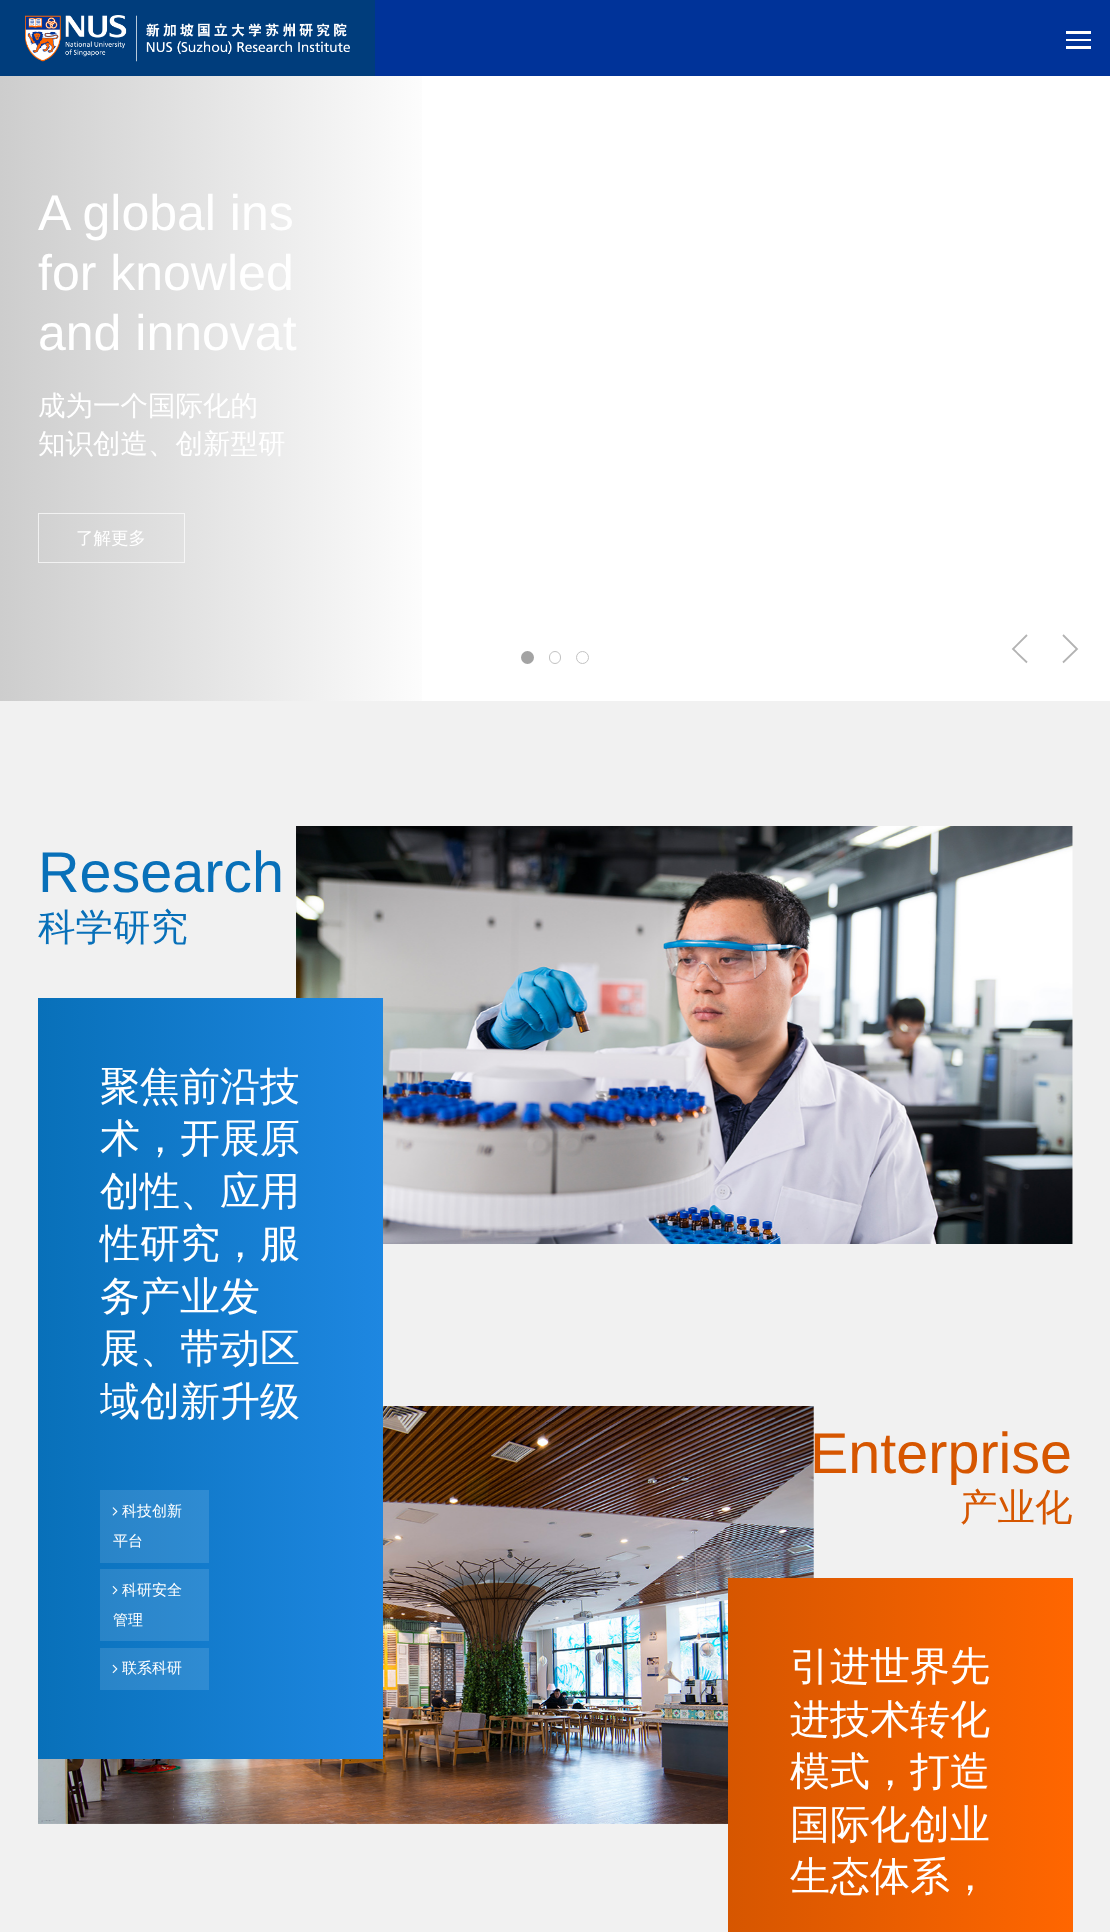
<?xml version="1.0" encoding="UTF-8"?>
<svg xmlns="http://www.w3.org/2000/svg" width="1110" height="1932">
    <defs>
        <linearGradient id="g1" gradientUnits="userSpaceOnUse" x1="0" y1="389" x2="444" y2="389"><stop offset="0" stop-color="#CDCDCD"/><stop offset="1" stop-color="#FFFFFF"/></linearGradient>
        <linearGradient id="g2" gradientUnits="userSpaceOnUse" x1="37" y1="1378" x2="383" y2="1378"><stop offset="0" stop-color="#0870B9"/><stop offset="1" stop-color="#1E87E1"/></linearGradient>
        <linearGradient id="g3" gradientUnits="userSpaceOnUse" x1="728" y1="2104" x2="1073" y2="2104"><stop offset="0" stop-color="#D65600"/><stop offset="1" stop-color="#FF6600"/></linearGradient>
    </defs>
    <rect width="100%" height="100%" fill="#FFFFFF"/>
    <rect x="375" y="0" width="735" height="76" fill="#003399"/>
    <rect x="0" y="0" width="375" height="76" fill="#003D7C"/>
    <image x="25" y="15" width="325" height="47" href="img_01.png"/>
    <rect x="1066" y="31" width="25" height="3" fill="#FFFFFF"/>
    <rect x="1066" y="39" width="25" height="2" fill="#FFFFFF"/>
    <rect x="1066" y="46" width="25" height="3" fill="#FFFFFF"/>
    <rect x="0" y="76" width="422" height="625" fill="url(#g1)"/>
    <text font-family="Liberation Sans" font-size="50" fill="#FFFFFF">
        <tspan x="38" y="230">A global ins</tspan>
        <tspan x="38" y="290">for knowled</tspan>
        <tspan x="38" y="350">and innovat</tspan>
    </text>
    <text font-family="WenQuanYi Zen Hei" font-size="27.5" font-weight="500" fill="#FFFFFF">
        <tspan x="38" y="415">成为一个国际化的</tspan>
        <tspan x="38" y="453">知识创造、创新型研</tspan>
    </text>
    <rect x="38.5" y="513.5" width="146" height="49" fill="none" stroke="#FFFFFF" stroke-opacity="0.7"/>
    <text x="76" y="544" font-family="WenQuanYi Zen Hei" font-size="17.5" font-weight="500" fill="#FFFFFF">了解更多</text>
    <circle cx="527.5" cy="657.5" r="6.5" fill="#A3A3A3"/>
    <rect x="549.5" y="651.5" width="11" height="12" rx="5.5" fill="none" stroke="#C2C2C2"/>
    <circle cx="582.5" cy="657.5" r="6" fill="none" stroke="#C2C2C2"/>
    <path d="M 1027 635 L 1013 649 L 1027 662.5" fill="none" stroke="#B3B3B3" stroke-width="1.8"/>
    <path d="M 1063 662.5 L 1077 649 L 1063 635" fill="none" stroke="#B3B3B3" stroke-width="1.8"/>
    <rect x="0" y="701" width="1110" height="1231" fill="#F1F1F1"/>
    <text x="38" y="892" font-family="Liberation Sans" font-size="57.5" fill="#0870B9">Research</text>
    <text x="38" y="940" font-family="WenQuanYi Zen Hei" font-size="37.5" font-weight="500" fill="#0870B9">科学研究</text>
    <image x="296" y="826" width="777" height="418" href="img_05.png"/>
    <image x="38" y="1406" width="776" height="418" href="img_06.png"/>
    <rect x="38" y="998" width="345" height="761" fill="url(#g2)"/>
    <text font-family="WenQuanYi Zen Hei" font-size="40" font-weight="500" fill="#FFFFFF">
        <tspan x="100" y="1100">聚焦前沿技</tspan>
        <tspan x="100" y="1152">术，开展原</tspan>
        <tspan x="100" y="1205">创性、应用</tspan>
        <tspan x="100" y="1257">性研究，服</tspan>
        <tspan x="100" y="1310">务产业发</tspan>
        <tspan x="100" y="1362">展、带动区</tspan>
        <tspan x="100" y="1415">域创新升级</tspan>
    </text>
    <rect x="100" y="1490" width="109" height="73" fill="#FFFFFF" fill-opacity="0.12"/>
    <image x="112" y="1507" width="6" height="9" href="img_02.png"/>
    <text x="122" y="1516" font-family="WenQuanYi Zen Hei" font-size="15" font-weight="500" fill="#FFFFFF">科技创新</text>
    <text x="113" y="1546" font-family="WenQuanYi Zen Hei" font-size="15" font-weight="500" fill="#FFFFFF">平台</text>
    <rect x="100" y="1569" width="109" height="72" fill="#FFFFFF" fill-opacity="0.12"/>
    <image x="112" y="1586" width="6" height="9" href="img_03.png"/>
    <text x="122" y="1595" font-family="WenQuanYi Zen Hei" font-size="15" font-weight="500" fill="#FFFFFF">科研安全</text>
    <text x="113" y="1625" font-family="WenQuanYi Zen Hei" font-size="15" font-weight="500" fill="#FFFFFF">管理</text>
    <rect x="100" y="1648" width="109" height="42" fill="#FFFFFF" fill-opacity="0.12"/>
    <image x="112" y="1664" width="6" height="10" href="img_04.png"/>
    <text x="122" y="1673" font-family="WenQuanYi Zen Hei" font-size="15" font-weight="500" fill="#FFFFFF">联系科研</text>
    <text x="810" y="1473" font-family="Liberation Sans" font-size="57.5" fill="#D65600">Enterprise</text>
    <text x="960" y="1520" font-family="WenQuanYi Zen Hei" font-size="37.5" font-weight="500" fill="#D65600">产业化</text>
    <rect x="728" y="1578" width="345" height="354" fill="url(#g3)"/>
    <text font-family="WenQuanYi Zen Hei" font-size="40" font-weight="500" fill="#FFFFFF">
        <tspan x="790" y="1680">引进世界先</tspan>
        <tspan x="790" y="1733">进技术转化</tspan>
        <tspan x="790" y="1785">模式，打造</tspan>
        <tspan x="790" y="1838">国际化创业</tspan>
        <tspan x="790" y="1890">生态体系，</tspan>
    </text>
</svg>
